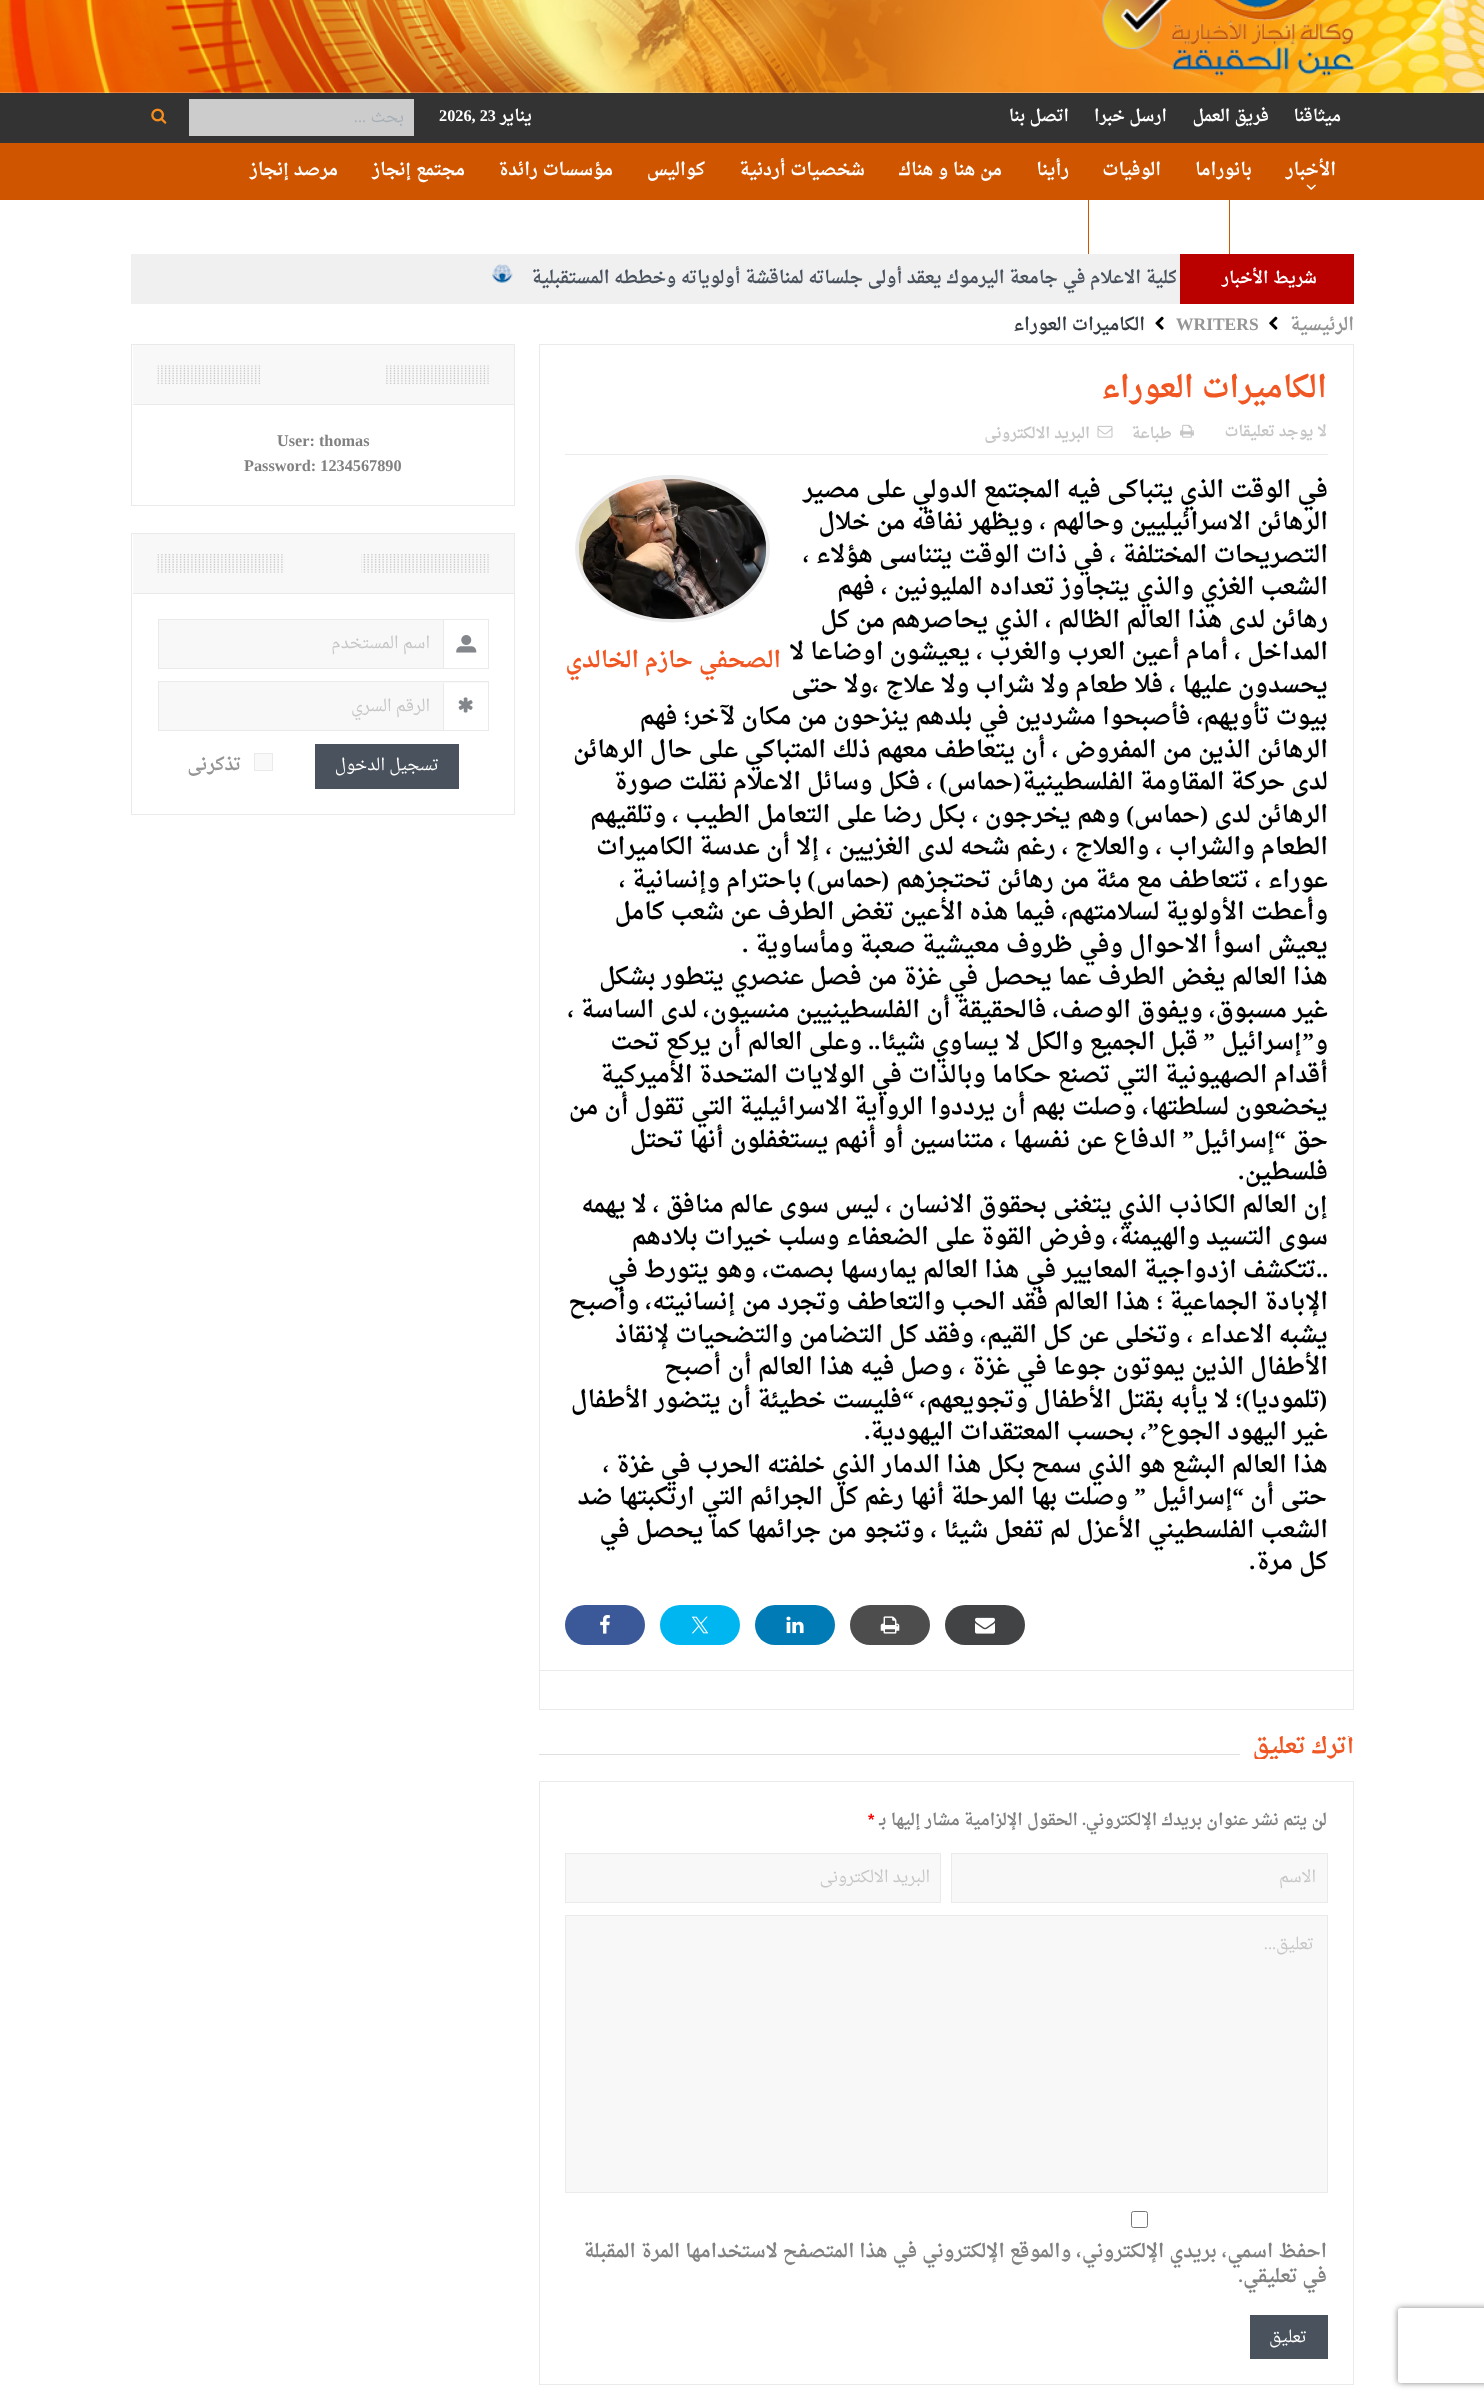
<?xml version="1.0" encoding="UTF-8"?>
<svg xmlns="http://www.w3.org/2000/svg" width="1484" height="2399">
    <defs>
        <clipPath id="clip1"><path d="M 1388 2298 H 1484 V 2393 H 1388 Z M 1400.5 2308 H 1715.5 C 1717 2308 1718 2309 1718 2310.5 V 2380.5 C 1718 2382 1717 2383 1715.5 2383 H 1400.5 C 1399 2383 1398 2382 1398 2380.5 V 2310.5 C 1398 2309 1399 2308 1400.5 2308 Z" clip-rule="evenodd"/></clipPath>
        <filter id="blur1" x="-50%" y="-200%" width="200%" height="500%"><feGaussianBlur stdDeviation="3"/></filter>
        <clipPath id="clip2"><rect x="145" y="255" width="1031" height="48"/></clipPath>
        <clipPath id="clip3"><rect x="539" y="1736" width="815" height="23"/></clipPath>
    </defs>
    <rect width="100%" height="100%" fill="#FFFFFF"/>
    <g clip-path="url(#clip1)">
        <rect x="1398" y="2308" width="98" height="75" rx="2.5" fill="#808080" filter="url(#blur1)"/>
    </g>
    <image x="0" y="0" width="1484" height="93" href="img_01.png"/>
    <image x="1102" y="0" width="252" height="76" href="img_02.png"/>
    <rect x="0" y="93" width="1484" height="50" fill="#333333"/>
    <text x="1341" y="121" font-family="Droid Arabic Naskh" font-size="16.25" font-weight="700" direction="rtl" fill="#FFFFFF">ميثاقنا</text>
    <text x="1269" y="121" font-family="Droid Arabic Naskh" font-size="16.25" font-weight="700" direction="rtl" fill="#FFFFFF">فريق العمل</text>
    <text x="1167" y="121" font-family="Droid Arabic Naskh" font-size="16.25" font-weight="700" direction="rtl" fill="#FFFFFF">ارسل خبرا</text>
    <text x="1069" y="121" font-family="Droid Arabic Naskh" font-size="16.25" font-weight="700" direction="rtl" fill="#FFFFFF">اتصل بنا</text>
    <text x="532" y="121" font-family="Droid Arabic Naskh" font-size="16.25" font-weight="700" direction="rtl" fill="#FFFFFF">يناير</text>
    <text x="439" y="121" font-family="Liberation Serif" font-size="16.25" font-weight="700" fill="#FFFFFF">2026, 23</text>
    <rect x="189" y="99" width="225" height="37" fill="#CCCCCC"/>
    <text x="404" y="122" font-family="Droid Arabic Naskh" font-size="16.25" direction="rtl" fill="#A7AFB7">بحث</text>
    <text x="366" y="122" font-family="Liberation Serif" font-size="16.25" direction="rtl" fill="#A7AFB7">...</text>
    <image x="151" y="108" width="16" height="16" href="img_03.png"/>
    <rect x="0" y="143" width="1484" height="57" fill="#CF5500"/>
    <text x="1336" y="175" font-family="Droid Arabic Naskh" font-size="17.5" font-weight="700" direction="rtl" fill="#FFFFFF">الأخبار</text>
    <image x="1306" y="184" width="10" height="6" href="img_04.png"/>
    <text x="1252" y="175" font-family="Droid Arabic Naskh" font-size="17.5" font-weight="700" direction="rtl" fill="#FFFFFF">بانوراما</text>
    <text x="1161" y="175" font-family="Droid Arabic Naskh" font-size="17.5" font-weight="700" direction="rtl" fill="#FFFFFF">الوفيات</text>
    <text x="1069" y="175" font-family="Droid Arabic Naskh" font-size="17.5" font-weight="700" direction="rtl" fill="#FFFFFF">رأينا</text>
    <text x="1002" y="175" font-family="Droid Arabic Naskh" font-size="17.5" font-weight="700" direction="rtl" fill="#FFFFFF">من هنا و هناك</text>
    <text x="865" y="175" font-family="Droid Arabic Naskh" font-size="17.5" font-weight="700" direction="rtl" fill="#FFFFFF">شخصيات أردنية</text>
    <text x="705" y="175" font-family="Droid Arabic Naskh" font-size="17.5" font-weight="700" direction="rtl" fill="#FFFFFF">كواليس</text>
    <text x="613" y="175" font-family="Droid Arabic Naskh" font-size="17.5" font-weight="700" direction="rtl" fill="#FFFFFF">مؤسسات رائدة</text>
    <text x="465" y="175" font-family="Droid Arabic Naskh" font-size="17.5" font-weight="700" direction="rtl" fill="#FFFFFF">مجتمع إنجاز</text>
    <text x="338" y="175" font-family="Droid Arabic Naskh" font-size="17.5" font-weight="700" direction="rtl" fill="#FFFFFF">مرصد إنجاز</text>
    <rect x="1229" y="199" width="1" height="55" fill="#CF5500"/>
    <rect x="1088" y="199" width="1" height="55" fill="#CF5500"/>
    <rect x="1180" y="254" width="174" height="50" fill="#BB0000"/>
    <text x="1317" y="283" font-family="Droid Arabic Naskh" font-size="16.25" font-weight="700" direction="rtl" fill="#FFFFFF">شريط الأخبار</text>
    <rect x="131" y="254" width="1049" height="50" fill="#F0F0F0"/>
    <g clip-path="url(#clip2)">
        <text x="1251" y="283" font-family="Droid Arabic Naskh" font-size="17.5" font-weight="700" direction="rtl" fill="#4A525D">استشاري كلية الاعلام في جامعة اليرموك يعقد أولى جلساته لمناقشة أولوياته وخططه المستقبلية</text>
    </g>
    <image x="492" y="264" width="21" height="19" href="img_05.png"/>
    <text x="1354" y="330" font-family="Droid Arabic Naskh" font-size="17.5" font-weight="700" direction="rtl" fill="#959595">الرئيسية</text>
    <image x="1269" y="316" width="9" height="14" href="img_06.png"/>
    <text x="1176" y="330" font-family="Liberation Serif" font-size="17.5" font-weight="700" fill="#959595">WRITERS</text>
    <image x="1155" y="316" width="9" height="14" href="img_07.png"/>
    <text x="1145" y="330" font-family="Droid Arabic Naskh" font-size="17.5" font-weight="700" direction="rtl" fill="#373C43">الكاميرات العوراء</text>
    <rect x="539.5" y="344.5" width="814" height="1365" fill="none" stroke="#EAEAEA"/>
    <text x="1327" y="397" font-family="Droid Arabic Naskh" font-size="30" font-weight="700" direction="rtl" fill="#F15723">الكاميرات العوراء</text>
    <rect x="565" y="454" width="763" height="1" fill="#EAEAEA"/>
    <text x="1327" y="436" font-family="Droid Arabic Naskh" font-size="15" font-weight="700" direction="rtl" fill="#C6C6C6">لا يوجد تعليقات</text>
    <image x="1180" y="424" width="14" height="14" href="img_08.png"/>
    <text x="1172" y="438" font-family="Droid Arabic Naskh" font-size="15" font-weight="700" direction="rtl" fill="#C6C6C6">طباعة</text>
    <image x="1097" y="425" width="16" height="13" href="img_09.png"/>
    <text x="1090" y="438" font-family="Droid Arabic Naskh" font-size="15" font-weight="700" direction="rtl" fill="#C6C6C6">البريد الالكترونى</text>
    <text font-family="Droid Arabic Naskh" font-size="23.3" font-weight="700" direction="rtl" fill="#000000">
        <tspan x="1328" y="497">في الوقت الذي يتباكى فيه المجتمع الدولي على مصير</tspan>
        <tspan x="1328" y="529">الرهائن الاسرائيليين وحالهم ، ويظهر نفاقه من خلال</tspan>
        <tspan x="1328" y="562">التصريحات المختلفة ، في ذات الوقت يتناسى هؤلاء ،</tspan>
        <tspan x="1328" y="594">الشعب الغزي والذي يتجاوز تعداده المليونين ، فهم</tspan>
        <tspan x="1328" y="627">رهائن لدى هذا العالم الظالم ، الذي يحاصرهم من كل</tspan>
        <tspan x="1328" y="659">المداخل ، أمام أعين العرب والغرب ، يعيشون اوضاعا لا</tspan>
        <tspan x="1328" y="692">يحسدون عليها ، فلا طعام ولا شراب ولا علاج ،ولا حتى</tspan>
        <tspan x="1328" y="724">بيوت تأويهم، فأصبحوا مشردين في بلدهم ينزحون من مكان لآخر؛ فهم</tspan>
        <tspan x="1328" y="757">الرهائن الذين من المفروض ، أن يتعاطف معهم ذلك المتباكي على حال الرهائن</tspan>
        <tspan x="1328" y="789">لدى حركة المقاومة الفلسطينية</tspan>
    </text>
    <text x="1021" y="789" font-family="Liberation Serif" font-size="23.3" font-weight="700" direction="rtl" fill="#000000">(</text>
    <text x="1013" y="789" font-family="Droid Arabic Naskh" font-size="23.3" font-weight="700" direction="rtl" fill="#000000">حماس</text>
    <text x="947" y="789" font-family="Liberation Serif" font-size="23.3" font-weight="700" direction="rtl" fill="#000000">)</text>
    <text x="933" y="789" font-family="Droid Arabic Naskh" font-size="23.3" font-weight="700" direction="rtl" fill="#000000">، فكل وسائل الاعلام نقلت صورة</text>
    <text x="1328" y="822" font-family="Droid Arabic Naskh" font-size="23.3" font-weight="700" direction="rtl" fill="#000000">الرهائن لدى</text>
    <text x="1208" y="822" font-family="Liberation Serif" font-size="23.3" font-weight="700" direction="rtl" fill="#000000">(</text>
    <text x="1200" y="822" font-family="Droid Arabic Naskh" font-size="23.3" font-weight="700" direction="rtl" fill="#000000">حماس</text>
    <text x="1134" y="822" font-family="Liberation Serif" font-size="23.3" font-weight="700" direction="rtl" fill="#000000">)</text>
    <text x="1120" y="822" font-family="Droid Arabic Naskh" font-size="23.3" font-weight="700" direction="rtl" fill="#000000">وهم يخرجون ، بكل رضا على التعامل الطيب ، وتلقيهم</text>
    <text font-family="Droid Arabic Naskh" font-size="23.3" font-weight="700" direction="rtl" fill="#000000">
        <tspan x="1328" y="854">الطعام والشراب ، والعلاج ، رغم شحه لدى الغزيين ، إلا أن عدسة الكاميرات</tspan>
        <tspan x="1328" y="887">عوراء ، تتعاطف مع مئة من رهائن تحتجزهم</tspan>
    </text>
    <text x="889" y="887" font-family="Liberation Serif" font-size="23.3" font-weight="700" direction="rtl" fill="#000000">(</text>
    <text x="882" y="887" font-family="Droid Arabic Naskh" font-size="23.3" font-weight="700" direction="rtl" fill="#000000">حماس</text>
    <text x="815" y="887" font-family="Liberation Serif" font-size="23.3" font-weight="700" direction="rtl" fill="#000000">)</text>
    <text x="802" y="887" font-family="Droid Arabic Naskh" font-size="23.3" font-weight="700" direction="rtl" fill="#000000">باحترام وإنسانية ،</text>
    <text font-family="Droid Arabic Naskh" font-size="23.3" font-weight="700" direction="rtl" fill="#000000">
        <tspan x="1328" y="919">وأعطت الأولوية لسلامتهم، فيما هذه الأعين تغض الطرف عن شعب كامل</tspan>
        <tspan x="1328" y="952">يعيش اسوأ الاحوال وفي ظروف معيشية صعبة ومأساوية</tspan>
    </text>
    <text x="748" y="952" font-family="Liberation Serif" font-size="23.3" font-weight="700" direction="rtl" fill="#000000">.</text>
    <text font-family="Droid Arabic Naskh" font-size="23.3" font-weight="700" direction="rtl" fill="#000000">
        <tspan x="1328" y="984">هذا العالم يغض الطرف عما يحصل في غزة من فصل عنصري يتطور بشكل</tspan>
        <tspan x="1328" y="1017">غير مسبوق، ويفوق الوصف، فالحقيقة أن الفلسطينيين منسيون، لدى الساسة ،</tspan>
    </text>
    <text x="1314" y="1049" font-family="Liberation Serif" font-size="23.3" font-weight="700" direction="rtl" fill="#000000">”</text>
    <text x="1302" y="1049" font-family="Droid Arabic Naskh" font-size="23.3" font-weight="700" direction="rtl" fill="#000000">إسرائيل</text>
    <text x="1215" y="1049" font-family="Liberation Serif" font-size="23.3" font-weight="700" direction="rtl" fill="#000000">”</text>
    <text x="1198" y="1049" font-family="Droid Arabic Naskh" font-size="23.3" font-weight="700" direction="rtl" fill="#000000">قبل الجميع والكل لا يساوي شيئا</text>
    <text x="862" y="1049" font-family="Droid Arabic Naskh" font-size="23.3" font-weight="700" direction="rtl" fill="#000000">وعلى العالم أن يركع تحت</text>
    <text x="1328" y="1049" font-family="Droid Arabic Naskh" font-size="23.3" font-weight="700" direction="rtl" fill="#000000">و</text>
    <text x="880" y="1049" font-family="Liberation Serif" font-size="23.3" font-weight="700" direction="rtl" fill="#000000">..</text>
    <text font-family="Droid Arabic Naskh" font-size="23.3" font-weight="700" direction="rtl" fill="#000000">
        <tspan x="1328" y="1082">أقدام الصهيونية التي تصنع حكاما وبالذات في الولايات المتحدة الأميركية</tspan>
        <tspan x="1328" y="1114">يخضعون لسلطتها، وصلت بهم أن يرددوا الرواية الاسرائيلية التي تقول أن من</tspan>
        <tspan x="1328" y="1147">حق</tspan>
    </text>
    <text x="1286" y="1147" font-family="Liberation Serif" font-size="23.3" font-weight="700" direction="rtl" fill="#000000">“</text>
    <text x="1275" y="1147" font-family="Droid Arabic Naskh" font-size="23.3" font-weight="700" direction="rtl" fill="#000000">إسرائيل</text>
    <text x="1194" y="1147" font-family="Liberation Serif" font-size="23.3" font-weight="700" direction="rtl" fill="#000000">”</text>
    <text x="1176" y="1147" font-family="Droid Arabic Naskh" font-size="23.3" font-weight="700" direction="rtl" fill="#000000">الدفاع عن نفسها ، متناسين أو أنهم يستغفلون أنها تحتل</text>
    <text x="1328" y="1179" font-family="Droid Arabic Naskh" font-size="23.3" font-weight="700" direction="rtl" fill="#000000">فلسطين</text>
    <text x="1244" y="1179" font-family="Liberation Serif" font-size="23.3" font-weight="700" direction="rtl" fill="#000000">.</text>
    <text font-family="Droid Arabic Naskh" font-size="23.3" font-weight="700" direction="rtl" fill="#000000">
        <tspan x="1328" y="1212">إن العالم الكاذب الذي يتغنى بحقوق الانسان ، ليس سوى عالم منافق ، لا يهمه</tspan>
        <tspan x="1328" y="1244">سوى التسيد والهيمنة، وفرض القوة على الضعفاء وسلب خيرات بلادهم</tspan>
    </text>
    <text x="1328" y="1277" font-family="Liberation Serif" font-size="23.3" font-weight="700" direction="rtl" fill="#000000">..</text>
    <text x="1316" y="1277" font-family="Droid Arabic Naskh" font-size="23.3" font-weight="700" direction="rtl" fill="#000000">تتكشف ازدواجية المعايير في هذا العالم يمارسها بصمت، وهو يتورط في</text>
    <text font-family="Droid Arabic Naskh" font-size="23.3" font-weight="700" direction="rtl" fill="#000000">
        <tspan x="1328" y="1309">الإبادة الجماعية ؛ هذا العالم فقد الحب والتعاطف وتجرد من إنسانيته، وأصبح</tspan>
        <tspan x="1328" y="1342">يشبه الاعداء ، وتخلى عن كل القيم، وفقد كل التضامن والتضحيات لإنقاذ</tspan>
        <tspan x="1328" y="1374">الأطفال الذين يموتون جوعا في غزة ، وصل فيه هذا العالم أن أصبح</tspan>
    </text>
    <text x="1327" y="1407" font-family="Liberation Serif" font-size="23.3" font-weight="700" direction="rtl" fill="#000000">(</text>
    <text x="1320" y="1407" font-family="Droid Arabic Naskh" font-size="23.3" font-weight="700" direction="rtl" fill="#000000">تلموديا</text>
    <text x="1250" y="1407" font-family="Liberation Serif" font-size="23.3" font-weight="700" direction="rtl" fill="#000000">)</text>
    <text x="1242" y="1407" font-family="Droid Arabic Naskh" font-size="23.3" font-weight="700" direction="rtl" fill="#000000">؛ لا يأبه بقتل الأطفال وتجويعهم،</text>
    <text x="914" y="1407" font-family="Liberation Serif" font-size="23.3" font-weight="700" direction="rtl" fill="#000000">“</text>
    <text x="902" y="1407" font-family="Droid Arabic Naskh" font-size="23.3" font-weight="700" direction="rtl" fill="#000000">فليست خطيئة أن يتضور الأطفال</text>
    <text x="1328" y="1439" font-family="Droid Arabic Naskh" font-size="23.3" font-weight="700" direction="rtl" fill="#000000">غير اليهود الجوع</text>
    <text x="1159" y="1439" font-family="Liberation Serif" font-size="23.3" font-weight="700" direction="rtl" fill="#000000">”</text>
    <text x="1147" y="1439" font-family="Droid Arabic Naskh" font-size="23.3" font-weight="700" direction="rtl" fill="#000000">، بحسب المعتقدات اليهودية</text>
    <text x="870" y="1439" font-family="Liberation Serif" font-size="23.3" font-weight="700" direction="rtl" fill="#000000">.</text>
    <text x="1328" y="1472" font-family="Droid Arabic Naskh" font-size="23.3" font-weight="700" direction="rtl" fill="#000000">هذا العالم البشع هو الذي سمح بكل هذا الدمار الذي خلفته الحرب في غزة ،</text>
    <text x="1327" y="1504" font-family="Droid Arabic Naskh" font-size="23.3" font-weight="700" direction="rtl" fill="#000000">حتى أن</text>
    <text x="1244" y="1504" font-family="Liberation Serif" font-size="23.3" font-weight="700" direction="rtl" fill="#000000">“</text>
    <text x="1233" y="1504" font-family="Droid Arabic Naskh" font-size="23.3" font-weight="700" direction="rtl" fill="#000000">إسرائيل</text>
    <text x="1146" y="1504" font-family="Liberation Serif" font-size="23.3" font-weight="700" direction="rtl" fill="#000000">”</text>
    <text x="1128" y="1504" font-family="Droid Arabic Naskh" font-size="23.3" font-weight="700" direction="rtl" fill="#000000">وصلت بها المرحلة أنها رغم كل الجرائم التي ارتكبتها ضد</text>
    <text font-family="Droid Arabic Naskh" font-size="23.3" font-weight="700" direction="rtl" fill="#000000">
        <tspan x="1328" y="1537">الشعب الفلسطيني الأعزل لم تفعل شيئا ، وتنجو من جرائمها كما يحصل في</tspan>
        <tspan x="1328" y="1569">كل مرة</tspan>
    </text>
    <text x="1255" y="1569" font-family="Liberation Serif" font-size="23.3" font-weight="700" direction="rtl" fill="#000000">.</text>
    <path d="M 672.5 477 C 725.5 477 768 509 768 549 C 768 588.5 725.5 620.5 672.5 620.5 C 619.5 620.5 577 588.5 577 549 C 577 509 619.5 477 672.5 477 Z" fill="none" stroke="#EAEAEA" stroke-width="3.8"/>
    <image x="578" y="479" width="189" height="140" href="img_10.png"/>
    <text x="781" y="667" font-family="Droid Arabic Naskh" font-size="22.5" font-weight="700" direction="rtl" fill="#F15723">الصحفي حازم الخالدي</text>
    <rect x="945" y="1605" width="80" height="40" rx="20" fill="#424345"/>
    <image x="975" y="1617" width="20" height="17" href="img_11.png"/>
    <rect x="850" y="1605" width="80" height="40" rx="20" fill="#4D4D4D"/>
    <image x="880" y="1616" width="20" height="18" href="img_12.png"/>
    <rect x="755" y="1605" width="80" height="40" rx="20" fill="#007BB6"/>
    <image x="786" y="1616" width="18" height="18" href="img_13.png"/>
    <rect x="660" y="1605" width="80" height="40" rx="20" fill="#00B6F1"/>
    <image x="691" y="1616" width="18" height="18" href="img_14.png"/>
    <rect x="565" y="1605" width="80" height="40" rx="20" fill="#3B5998"/>
    <image x="600" y="1615" width="10" height="19" href="img_15.png"/>
    <rect x="540" y="1670" width="813" height="1" fill="#EAEAEA"/>
    <g clip-path="url(#clip3)">
        <text x="1354" y="1753" font-family="Droid Arabic Naskh" font-size="22.5" font-weight="700" direction="rtl" fill="#F15723">أترك تعليق</text>
    </g>
    <rect x="539" y="1754" width="701" height="1" fill="#E0E0E0"/>
    <rect x="539.5" y="1781.5" width="814" height="603" fill="none" stroke="#EAEAEA"/>
    <text x="1327" y="1825" font-family="Droid Arabic Naskh" font-size="16.25" font-weight="700" direction="rtl" fill="#818181">لن يتم نشر عنوان بريدك الإلكتروني</text>
    <text x="1078" y="1825" font-family="Droid Arabic Naskh" font-size="16.25" font-weight="700" direction="rtl" fill="#818181">الحقول الإلزامية مشار إليها بـ</text>
    <text x="868" y="1825" font-family="Liberation Sans" font-size="16.25" font-weight="700" fill="#FF0000">*</text>
    <text x="1086" y="1825" font-family="Liberation Serif" font-size="16.25" font-weight="700" direction="rtl" fill="#818181">.</text>
    <rect x="951.5" y="1853.5" width="376" height="49" fill="#F8F8F8" stroke="#EAEAEA"/>
    <text x="1316" y="1882" font-family="Droid Arabic Naskh" font-size="16.25" direction="rtl" fill="#C6C6C6">الاسم</text>
    <rect x="565.5" y="1853.5" width="375" height="49" fill="#F8F8F8" stroke="#EAEAEA"/>
    <text x="930" y="1882" font-family="Droid Arabic Naskh" font-size="16.25" direction="rtl" fill="#C6C6C6">البريد الالكترونى</text>
    <rect x="565.5" y="1915.5" width="762" height="277" fill="#F8F8F8" stroke="#EAEAEA"/>
    <text x="1314" y="1949" font-family="Droid Arabic Naskh" font-size="16.25" direction="rtl" fill="#C6C6C6">تعليق</text>
    <text x="1276" y="1949" font-family="Liberation Serif" font-size="16.25" direction="rtl" fill="#C6C6C6">...</text>
    <rect x="1131.5" y="2211.5" width="16" height="16" rx="2" fill="none" stroke="#767676"/>
    <text font-family="Droid Arabic Naskh" font-size="18.75" font-weight="700" direction="rtl" fill="#818181">
        <tspan x="1327" y="2257">احفظ اسمي، بريدي الإلكتروني، والموقع الإلكتروني في هذا المتصفح لاستخدامها المرة المقبلة</tspan>
        <tspan x="1327" y="2282">في تعليقي</tspan>
    </text>
    <text x="1243" y="2282" font-family="Liberation Serif" font-size="18.75" font-weight="700" direction="rtl" fill="#818181">.</text>
    <rect x="1250" y="2315" width="78" height="44" fill="#4A525D"/>
    <text x="1307" y="2342" font-family="Droid Arabic Naskh" font-size="16.25" direction="rtl" fill="#FFFFFF">تعليق</text>
    <rect x="131.5" y="344.5" width="383" height="161" fill="none" stroke="#EAEAEA"/>
    <rect x="133" y="345" width="381" height="59" fill="#F8F8F8"/>
    <rect x="133" y="404" width="381" height="1" fill="#EAEAEA"/>
    <image x="157" y="365" width="332" height="19" href="img_16.png"/>
    <rect x="260" y="365" width="124" height="19" fill="#F8F8F8"/>
    <text x="277" y="446" font-family="Liberation Serif" font-size="16.25" font-weight="700" fill="#818181">User: thomas</text>
    <text x="244" y="471" font-family="Liberation Serif" font-size="16.25" font-weight="700" fill="#818181">Password: 1234567890</text>
    <rect x="131.5" y="533.5" width="383" height="281" fill="none" stroke="#EAEAEA"/>
    <rect x="133" y="534" width="381" height="59" fill="#F8F8F8"/>
    <rect x="133" y="593" width="381" height="1" fill="#EAEAEA"/>
    <image x="157" y="554" width="332" height="19" href="img_17.png"/>
    <rect x="285" y="554" width="76" height="19" fill="#F8F8F8"/>
    <rect x="159" y="620" width="284" height="48" fill="#F8F8F8"/>
    <rect x="158.5" y="619.5" width="330" height="49" fill="none" stroke="#EAEAEA"/>
    <rect x="443" y="620" width="1" height="48" fill="#EAEAEA"/>
    <image x="456" y="635" width="21" height="18" href="img_18.png"/>
    <text x="430" y="648" font-family="Droid Arabic Naskh" font-size="16.25" direction="rtl" fill="#C6C6C6">اسم المستخدم</text>
    <rect x="158.5" y="681.5" width="330" height="49" fill="#F8F8F8" stroke="#EAEAEA"/>
    <rect x="444" y="683" width="44" height="47" fill="#FFFFFF"/>
    <rect x="443" y="683" width="1" height="47" fill="#EAEAEA"/>
    <image x="458" y="697" width="15" height="16" href="img_19.png"/>
    <text x="430" y="711" font-family="Droid Arabic Naskh" font-size="16.25" direction="rtl" fill="#C6C6C6">الرقم السري</text>
    <rect x="315" y="744" width="144" height="45" fill="#4A525D"/>
    <text x="439" y="770" font-family="Droid Arabic Naskh" font-size="16.25" direction="rtl" fill="#FFFFFF">تسجيل الدخول</text>
    <rect x="254.5" y="753.5" width="18" height="17" fill="#F9F9F9" stroke="#EAEAEA"/>
    <text x="241" y="770" font-family="Droid Arabic Naskh" font-size="17.5" font-weight="700" direction="rtl" fill="#959595">تذكرنى</text>
</svg>
